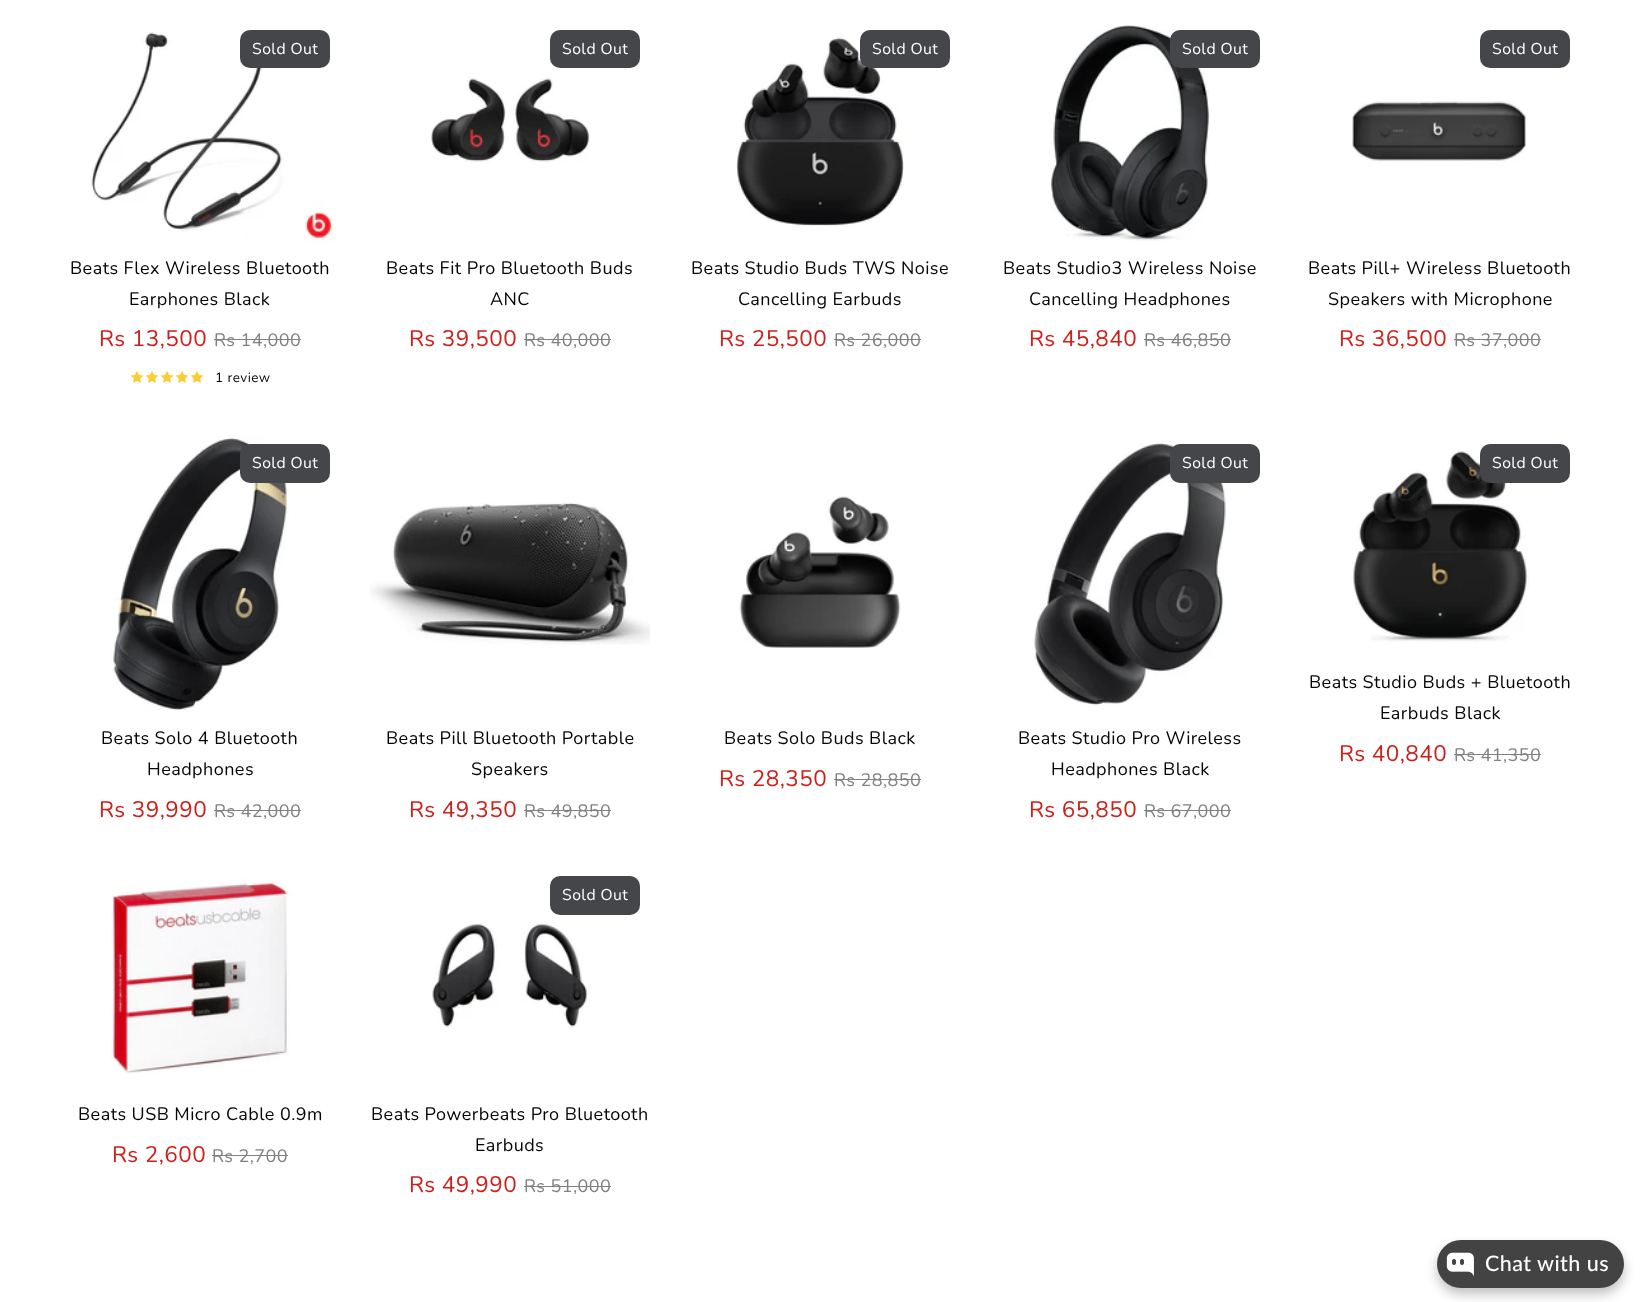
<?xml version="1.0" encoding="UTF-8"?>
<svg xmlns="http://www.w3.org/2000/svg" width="1640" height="1302">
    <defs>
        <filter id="blur1" x="-50%" y="-200%" width="200%" height="500%"><feGaussianBlur stdDeviation="6"/></filter>
    </defs>
    <rect width="100%" height="100%" fill="#FFFFFF"/>
    <image x="91" y="32" width="244" height="212" href="img_01.png"/>
    <rect x="240" y="30" width="90" height="38" rx="10" fill="#444649"/>
    <text x="252" y="54" font-family="Nunito" font-size="15.75" letter-spacing="0.45" fill="#FFFFFF">Sold Out</text>
    <text x="99" y="346" font-family="Nunito" font-size="22.5" letter-spacing="0.45" fill="#CD201A">Rs 13,500</text>
    <text x="214" y="346" font-family="Nunito" font-size="18" letter-spacing="0.45" fill="#828282">Rs 14,000</text>
    <rect x="214" y="339" width="87" height="1" fill="#828282"/>
    <text x="70" y="274" font-family="Nunito" font-size="18" letter-spacing="0.45" fill="#050505">Beats Flex Wireless Bluetooth</text>
    <text x="129" y="305" font-family="Nunito" font-size="18" letter-spacing="0.45" fill="#050505">Earphones Black</text>
    <image x="131" y="371" width="12" height="12" href="img_03.png"/>
    <image x="130" y="371" width="14" height="12" href="img_02.png"/>
    <image x="146" y="371" width="12" height="12" href="img_03.png"/>
    <image x="145" y="371" width="14" height="12" href="img_02.png"/>
    <image x="161" y="371" width="12" height="12" href="img_03.png"/>
    <image x="160" y="371" width="14" height="12" href="img_02.png"/>
    <image x="176" y="371" width="12" height="12" href="img_03.png"/>
    <image x="175" y="371" width="14" height="12" href="img_02.png"/>
    <image x="191" y="371" width="12" height="12" href="img_03.png"/>
    <image x="190" y="371" width="14" height="12" href="img_02.png"/>
    <text x="215" y="382" font-family="Nunito" font-size="13.5" letter-spacing="0.45" fill="#050505">1 review</text>
    <rect x="550" y="30" width="90" height="38" rx="10" fill="#444649"/>
    <text x="562" y="54" font-family="Nunito" font-size="15.75" letter-spacing="0.45" fill="#FFFFFF">Sold Out</text>
    <text x="409" y="346" font-family="Nunito" font-size="22.5" letter-spacing="0.45" fill="#CD201A">Rs 39,500</text>
    <text x="524" y="346" font-family="Nunito" font-size="18" letter-spacing="0.45" fill="#828282">Rs 40,000</text>
    <rect x="524" y="339" width="87" height="1" fill="#828282"/>
    <image x="431" y="76" width="159" height="86" href="img_04.png"/>
    <text x="386" y="274" font-family="Nunito" font-size="18" letter-spacing="0.45" fill="#050505">Beats Fit Pro Bluetooth Buds</text>
    <text x="490" y="305" font-family="Nunito" font-size="18" letter-spacing="0.45" fill="#050505">ANC</text>
    <image x="736" y="36" width="168" height="191" href="img_05.png"/>
    <rect x="860" y="30" width="90" height="38" rx="10" fill="#444649"/>
    <text x="872" y="54" font-family="Nunito" font-size="15.75" letter-spacing="0.45" fill="#FFFFFF">Sold Out</text>
    <text x="719" y="346" font-family="Nunito" font-size="22.5" letter-spacing="0.45" fill="#CD201A">Rs 25,500</text>
    <text x="834" y="346" font-family="Nunito" font-size="18" letter-spacing="0.45" fill="#828282">Rs 26,000</text>
    <rect x="834" y="339" width="87" height="1" fill="#828282"/>
    <text x="691" y="274" font-family="Nunito" font-size="18" letter-spacing="0.45" fill="#050505">Beats Studio Buds TWS Noise</text>
    <text x="738" y="305" font-family="Nunito" font-size="18" letter-spacing="0.45" fill="#050505">Cancelling Earbuds</text>
    <image x="1051" y="25" width="159" height="216" href="img_06.png"/>
    <rect x="1170" y="30" width="90" height="38" rx="10" fill="#444649"/>
    <text x="1182" y="54" font-family="Nunito" font-size="15.75" letter-spacing="0.45" fill="#FFFFFF">Sold Out</text>
    <text x="1029" y="346" font-family="Nunito" font-size="22.5" letter-spacing="0.45" fill="#CD201A">Rs 45,840</text>
    <text x="1144" y="346" font-family="Nunito" font-size="18" letter-spacing="0.45" fill="#828282">Rs 46,850</text>
    <rect x="1144" y="339" width="87" height="1" fill="#828282"/>
    <text x="1003" y="274" font-family="Nunito" font-size="18" letter-spacing="0.45" fill="#050505">Beats Studio3 Wireless Noise</text>
    <text x="1029" y="305" font-family="Nunito" font-size="18" letter-spacing="0.45" fill="#050505">Cancelling Headphones</text>
    <rect x="1480" y="30" width="90" height="38" rx="10" fill="#444649"/>
    <text x="1492" y="54" font-family="Nunito" font-size="15.75" letter-spacing="0.45" fill="#FFFFFF">Sold Out</text>
    <text x="1339" y="346" font-family="Nunito" font-size="22.5" letter-spacing="0.45" fill="#CD201A">Rs 36,500</text>
    <text x="1454" y="346" font-family="Nunito" font-size="18" letter-spacing="0.45" fill="#828282">Rs 37,000</text>
    <rect x="1454" y="339" width="87" height="1" fill="#828282"/>
    <image x="1351" y="101" width="177" height="62" href="img_07.png"/>
    <text x="1308" y="274" font-family="Nunito" font-size="18" letter-spacing="0.45" fill="#050505">Beats Pill+ Wireless Bluetooth</text>
    <text x="1328" y="305" font-family="Nunito" font-size="18" letter-spacing="0.45" fill="#050505">Speakers with Microphone</text>
    <image x="111" y="434" width="178" height="277" href="img_08.png"/>
    <rect x="240" y="444" width="90" height="39" rx="10" fill="#444649"/>
    <text x="252" y="468" font-family="Nunito" font-size="15.75" letter-spacing="0.45" fill="#FFFFFF">Sold Out</text>
    <text x="99" y="817" font-family="Nunito" font-size="22.5" letter-spacing="0.45" fill="#CD201A">Rs 39,990</text>
    <text x="214" y="817" font-family="Nunito" font-size="18" letter-spacing="0.45" fill="#828282">Rs 42,000</text>
    <rect x="214" y="810" width="87" height="1" fill="#828282"/>
    <text x="101" y="744" font-family="Nunito" font-size="18" letter-spacing="0.45" fill="#050505">Beats Solo 4 Bluetooth</text>
    <text x="147" y="775" font-family="Nunito" font-size="18" letter-spacing="0.45" fill="#050505">Headphones</text>
    <image x="1032" y="442" width="194" height="264" href="img_09.png"/>
    <rect x="1170" y="444" width="90" height="39" rx="10" fill="#444649"/>
    <text x="1182" y="468" font-family="Nunito" font-size="15.75" letter-spacing="0.45" fill="#FFFFFF">Sold Out</text>
    <text x="1029" y="817" font-family="Nunito" font-size="22.5" letter-spacing="0.45" fill="#CD201A">Rs 65,850</text>
    <text x="1144" y="817" font-family="Nunito" font-size="18" letter-spacing="0.45" fill="#828282">Rs 67,000</text>
    <rect x="1144" y="810" width="87" height="1" fill="#828282"/>
    <text x="1018" y="744" font-family="Nunito" font-size="18" letter-spacing="0.45" fill="#050505">Beats Studio Pro Wireless</text>
    <text x="1051" y="775" font-family="Nunito" font-size="18" letter-spacing="0.45" fill="#050505">Headphones Black</text>
    <image x="1351" y="450" width="178" height="193" href="img_10.png"/>
    <rect x="1480" y="444" width="90" height="39" rx="10" fill="#444649"/>
    <text x="1492" y="468" font-family="Nunito" font-size="15.75" letter-spacing="0.45" fill="#FFFFFF">Sold Out</text>
    <text x="1339" y="761" font-family="Nunito" font-size="22.5" letter-spacing="0.45" fill="#CD201A">Rs 40,840</text>
    <text x="1454" y="761" font-family="Nunito" font-size="18" letter-spacing="0.45" fill="#828282">Rs 41,350</text>
    <rect x="1454" y="754" width="87" height="1" fill="#828282"/>
    <text x="1309" y="688" font-family="Nunito" font-size="18" letter-spacing="0.45" fill="#050505">Beats Studio Buds + Bluetooth</text>
    <text x="1380" y="719" font-family="Nunito" font-size="18" letter-spacing="0.45" fill="#050505">Earbuds Black</text>
    <image x="370" y="502" width="280" height="143" href="img_11.png"/>
    <text x="386" y="744" font-family="Nunito" font-size="18" letter-spacing="0.45" fill="#050505">Beats Pill Bluetooth Portable</text>
    <text x="471" y="775" font-family="Nunito" font-size="18" letter-spacing="0.45" fill="#050505">Speakers</text>
    <text x="409" y="817" font-family="Nunito" font-size="22.5" letter-spacing="0.45" fill="#CD201A">Rs 49,350</text>
    <text x="524" y="817" font-family="Nunito" font-size="18" letter-spacing="0.45" fill="#828282">Rs 49,850</text>
    <rect x="524" y="810" width="87" height="1" fill="#828282"/>
    <image x="739" y="496" width="162" height="152" href="img_12.png"/>
    <text x="724" y="744" font-family="Nunito" font-size="18" letter-spacing="0.45" fill="#050505">Beats Solo Buds Black</text>
    <text x="719" y="786" font-family="Nunito" font-size="22.5" letter-spacing="0.45" fill="#CD201A">Rs 28,350</text>
    <text x="834" y="786" font-family="Nunito" font-size="18" letter-spacing="0.45" fill="#828282">Rs 28,850</text>
    <rect x="834" y="779" width="87" height="1" fill="#828282"/>
    <image x="111" y="878" width="183" height="196" href="img_13.png"/>
    <text x="78" y="1120" font-family="Nunito" font-size="18" letter-spacing="0.45" fill="#050505">Beats USB Micro Cable 0.9m</text>
    <text x="112" y="1162" font-family="Nunito" font-size="22.5" letter-spacing="0.45" fill="#CD201A">Rs 2,600</text>
    <text x="212" y="1162" font-family="Nunito" font-size="18" letter-spacing="0.45" fill="#828282">Rs 2,700</text>
    <rect x="212" y="1155" width="76" height="1" fill="#828282"/>
    <rect x="550" y="876" width="90" height="39" rx="10" fill="#444649"/>
    <text x="562" y="900" font-family="Nunito" font-size="15.75" letter-spacing="0.45" fill="#FFFFFF">Sold Out</text>
    <text x="409" y="1192" font-family="Nunito" font-size="22.5" letter-spacing="0.45" fill="#CD201A">Rs 49,990</text>
    <text x="524" y="1192" font-family="Nunito" font-size="18" letter-spacing="0.45" fill="#828282">Rs 51,000</text>
    <rect x="524" y="1186" width="87" height="1" fill="#828282"/>
    <image x="431" y="922" width="158" height="107" href="img_14.png"/>
    <text x="371" y="1120" font-family="Nunito" font-size="18" letter-spacing="0.45" fill="#050505">Beats Powerbeats Pro Bluetooth</text>
    <text x="475" y="1151" font-family="Nunito" font-size="18" letter-spacing="0.45" fill="#050505">Earbuds</text>
    <rect x="1437" y="1246" width="187" height="48" rx="24" fill="#000000" fill-opacity="0.25" filter="url(#blur1)"/>
    <rect x="1437" y="1240" width="187" height="48" rx="24" fill="#434343"/>
    <image x="1446" y="1252" width="28" height="24" href="img_15.png"/>
    <text x="1485" y="1271" font-family="Lato" font-size="21.5" font-weight="500" letter-spacing="0.45" fill="#FFFFFF">Chat with us</text>
</svg>
